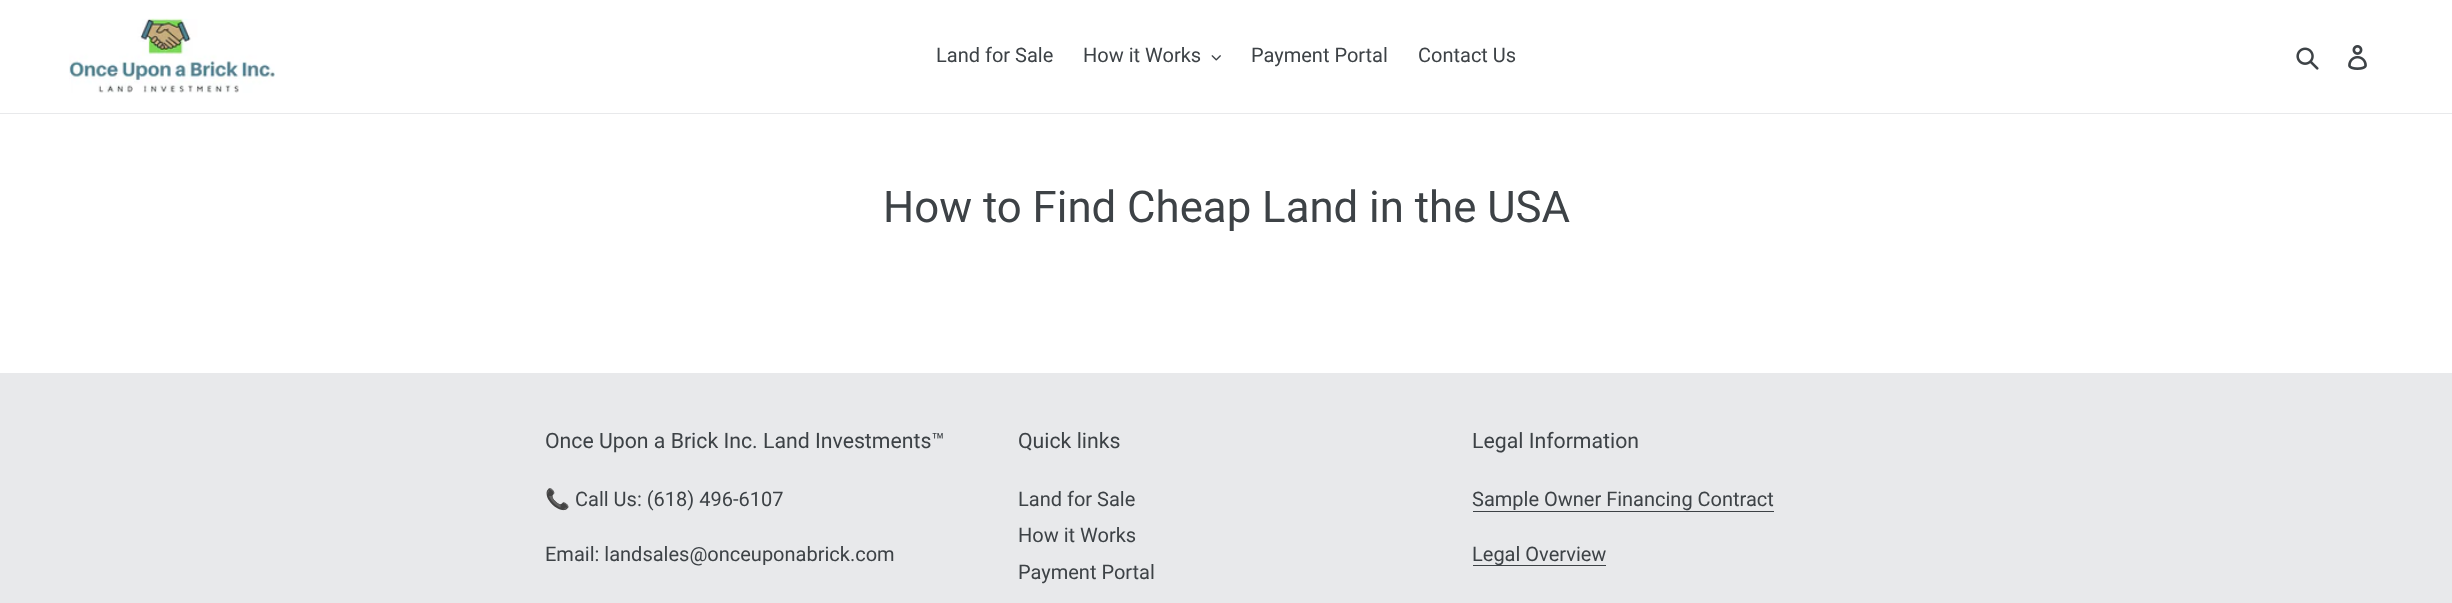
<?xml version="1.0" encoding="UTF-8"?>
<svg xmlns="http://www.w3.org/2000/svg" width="2452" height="603">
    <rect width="100%" height="100%" fill="#FFFFFF"/>
    <rect x="0" y="113" width="2452" height="1" fill="#E8E9EB"/>
    <image x="69" y="18" width="206" height="75" href="img_01.png"/>
    <text x="936" y="62" font-family="Roboto" font-size="20" fill="#3D4246">Land for Sale</text>
    <text x="1083" y="62" font-family="Roboto" font-size="20" fill="#3D4246">How it Works</text>
    <image x="1211" y="55" width="10" height="6" href="img_02.png"/>
    <text x="1251" y="62" font-family="Roboto" font-size="20" fill="#3D4246">Payment Portal</text>
    <text x="1418" y="62" font-family="Roboto" font-size="20" fill="#3D4246">Contact Us</text>
    <image x="2296" y="47" width="23" height="23" href="img_03.png"/>
    <image x="2348" y="45" width="19" height="25" href="img_04.png"/>
    <text x="883" y="222" font-family="Roboto" font-size="43.75" fill="#3D4246">How to Find Cheap Land in the USA</text>
    <rect x="0" y="373" width="2452" height="230" fill="#E8E9EB"/>
    <text x="545" y="448" font-family="Roboto" font-size="21.25" fill="#3D4246">Once Upon a Brick Inc. Land Investments™</text>
    <text x="545" y="506" font-family="Noto Color Emoji" font-size="20" fill="#3D4246">📞</text>
    <text x="575" y="506" font-family="Roboto" font-size="20" fill="#3D4246">Call Us: (618) 496-6107</text>
    <text x="545" y="561" font-family="Roboto" font-size="20" fill="#3D4246">Email: landsales@onceuponabrick.com</text>
    <text x="1018" y="448" font-family="Roboto" font-size="21.25" fill="#3D4246">Quick links</text>
    <text font-family="Roboto" font-size="20" fill="#3D4246">
        <tspan x="1018" y="506">Land for Sale</tspan>
        <tspan x="1018" y="542">How it Works</tspan>
        <tspan x="1018" y="579">Payment Portal</tspan>
    </text>
    <text x="1472" y="448" font-family="Roboto" font-size="21.25" fill="#3D4246">Legal Information</text>
    <text x="1472" y="506" font-family="Roboto" font-size="20" fill="#3D4246">Sample Owner Financing Contract</text>
    <rect x="1473" y="511" width="301" height="1" fill="#3D4246"/>
    <rect x="1473" y="565" width="133" height="1" fill="#3D4246"/>
    <text x="1472" y="561" font-family="Roboto" font-size="20" fill="#3D4246">Legal Overview</text>
</svg>
